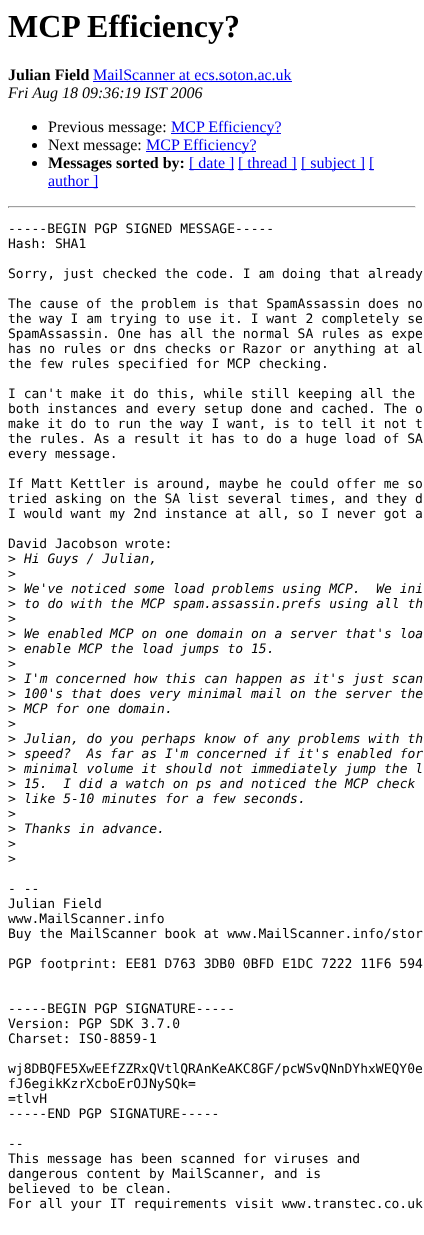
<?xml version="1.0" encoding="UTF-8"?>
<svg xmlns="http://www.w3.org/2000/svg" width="424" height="1235">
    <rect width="100%" height="100%" fill="#FFFFFF"/>
    <text x="8" y="37" font-family="Liberation Serif" font-size="32" font-weight="700" fill="#000000">MCP Efficiency?</text>
    <text x="8" y="80" font-family="Liberation Serif" font-size="16" font-weight="700" fill="#000000">Julian Field</text>
    <text x="93" y="80" font-family="Liberation Serif" font-size="16" fill="#0000EE">MailScanner at ecs.soton.ac.uk</text>
    <rect x="93" y="81" width="199" height="1" fill="#0000EE"/>
    <text x="8" y="98" font-family="Liberation Serif" font-size="16" font-style="italic" fill="#000000">Fri Aug 18 09:36:19 IST 2006</text>
    <circle cx="34.5" cy="127.5" r="2.5" fill="#000000"/>
    <text x="48" y="132" font-family="Liberation Serif" font-size="16" fill="#000000">Previous message:</text>
    <rect x="171" y="133" width="110" height="1" fill="#0000EE"/>
    <text x="171" y="132" font-family="Liberation Serif" font-size="16" fill="#0000EE">MCP Efficiency?</text>
    <circle cx="34.5" cy="145.5" r="2.5" fill="#000000"/>
    <text x="48" y="150" font-family="Liberation Serif" font-size="16" fill="#000000">Next message:</text>
    <rect x="146" y="151" width="110" height="1" fill="#0000EE"/>
    <text x="146" y="150" font-family="Liberation Serif" font-size="16" fill="#0000EE">MCP Efficiency?</text>
    <circle cx="34.5" cy="163.5" r="2.5" fill="#000000"/>
    <text x="48" y="168" font-family="Liberation Serif" font-size="16" font-weight="700" fill="#000000">Messages sorted by:</text>
    <rect x="189" y="169" width="45" height="1" fill="#0000EE"/>
    <text x="189" y="168" font-family="Liberation Serif" font-size="16" fill="#0000EE">[ date ]</text>
    <rect x="238" y="169" width="59" height="1" fill="#0000EE"/>
    <text x="238" y="168" font-family="Liberation Serif" font-size="16" fill="#0000EE">[ thread ]</text>
    <rect x="301" y="169" width="64" height="1" fill="#0000EE"/>
    <text x="301" y="168" font-family="Liberation Serif" font-size="16" fill="#0000EE">[ subject ]</text>
    <rect x="369" y="169" width="5" height="1" fill="#0000EE"/>
    <text x="369" y="168" font-family="Liberation Serif" font-size="16" fill="#0000EE">[</text>
    <rect x="48" y="187" width="50" height="1" fill="#0000EE"/>
    <text x="48" y="186" font-family="Liberation Serif" font-size="16" fill="#0000EE">author ]</text>
    <rect x="8" y="206" width="408" height="1" fill="#9F9F9F"/>
    <rect x="415" y="206" width="1" height="2" fill="#EEEEEE"/>
    <rect x="8" y="207" width="408" height="1" fill="#EEEEEE"/>
    <rect x="8" y="206" width="1" height="2" fill="#9F9F9F"/>
    <text font-family="DejaVu Sans Mono" font-size="13" fill="#000000">
        <tspan x="8" y="233">-----BEGIN PGP SIGNED MESSAGE-----</tspan>
        <tspan x="8" y="248">Hash: SHA1</tspan>
    </text>
    <text x="8" y="278" font-family="DejaVu Sans Mono" font-size="13" fill="#000000">Sorry, just checked the code. I am doing that already</text>
    <text font-family="DejaVu Sans Mono" font-size="13" fill="#000000">
        <tspan x="8" y="308">The cause of the problem is that SpamAssassin does no</tspan>
        <tspan x="8" y="323">the way I am trying to use it. I want 2 completely se</tspan>
        <tspan x="8" y="338">SpamAssassin. One has all the normal SA rules as expe</tspan>
        <tspan x="8" y="353">has no rules or dns checks or Razor or anything at al</tspan>
        <tspan x="8" y="368">the few rules specified for MCP checking.</tspan>
    </text>
    <text font-family="DejaVu Sans Mono" font-size="13" fill="#000000">
        <tspan x="8" y="398">I can't make it do this, while still keeping all the</tspan>
        <tspan x="8" y="413">both instances and every setup done and cached. The o</tspan>
        <tspan x="8" y="428">make it do to run the way I want, is to tell it not t</tspan>
        <tspan x="8" y="443">the rules. As a result it has to do a huge load of SA</tspan>
        <tspan x="8" y="458">every message.</tspan>
    </text>
    <text font-family="DejaVu Sans Mono" font-size="13" fill="#000000">
        <tspan x="8" y="488">If Matt Kettler is around, maybe he could offer me so</tspan>
        <tspan x="8" y="503">tried asking on the SA list several times, and they d</tspan>
        <tspan x="8" y="518">I would want my 2nd instance at all, so I never got a</tspan>
    </text>
    <text font-family="DejaVu Sans Mono" font-size="13" fill="#000000">
        <tspan x="8" y="548">David Jacobson wrote:</tspan>
        <tspan x="8" y="563">&gt;</tspan>
    </text>
    <text x="24" y="563" font-family="DejaVu Sans Mono" font-size="13" font-style="italic" fill="#000000">Hi Guys / Julian,</text>
    <text font-family="DejaVu Sans Mono" font-size="13" fill="#000000">
        <tspan x="8" y="578">&gt;</tspan>
        <tspan x="8" y="593">&gt;</tspan>
    </text>
    <text x="24" y="593" font-family="DejaVu Sans Mono" font-size="13" font-style="italic" fill="#000000" xml:space="preserve">We've noticed some load problems using MCP.  We ini</text>
    <text x="8" y="608" font-family="DejaVu Sans Mono" font-size="13" fill="#000000">&gt;</text>
    <text x="24" y="608" font-family="DejaVu Sans Mono" font-size="13" font-style="italic" fill="#000000">to do with the MCP spam.assassin.prefs using all th</text>
    <text font-family="DejaVu Sans Mono" font-size="13" fill="#000000">
        <tspan x="8" y="623">&gt;</tspan>
        <tspan x="8" y="638">&gt;</tspan>
    </text>
    <text x="24" y="638" font-family="DejaVu Sans Mono" font-size="13" font-style="italic" fill="#000000">We enabled MCP on one domain on a server that's loa</text>
    <text x="8" y="653" font-family="DejaVu Sans Mono" font-size="13" fill="#000000">&gt;</text>
    <text x="24" y="653" font-family="DejaVu Sans Mono" font-size="13" font-style="italic" fill="#000000">enable MCP the load jumps to 15.</text>
    <text font-family="DejaVu Sans Mono" font-size="13" fill="#000000">
        <tspan x="8" y="668">&gt;</tspan>
        <tspan x="8" y="683">&gt;</tspan>
    </text>
    <text x="24" y="683" font-family="DejaVu Sans Mono" font-size="13" font-style="italic" fill="#000000">I'm concerned how this can happen as it's just scan</text>
    <text x="8" y="698" font-family="DejaVu Sans Mono" font-size="13" fill="#000000">&gt;</text>
    <text x="24" y="698" font-family="DejaVu Sans Mono" font-size="13" font-style="italic" fill="#000000">100's that does very minimal mail on the server the</text>
    <text x="8" y="713" font-family="DejaVu Sans Mono" font-size="13" fill="#000000">&gt;</text>
    <text x="24" y="713" font-family="DejaVu Sans Mono" font-size="13" font-style="italic" fill="#000000">MCP for one domain.</text>
    <text font-family="DejaVu Sans Mono" font-size="13" fill="#000000">
        <tspan x="8" y="728">&gt;</tspan>
        <tspan x="8" y="743">&gt;</tspan>
    </text>
    <text x="24" y="743" font-family="DejaVu Sans Mono" font-size="13" font-style="italic" fill="#000000">Julian, do you perhaps know of any problems with th</text>
    <text x="8" y="758" font-family="DejaVu Sans Mono" font-size="13" fill="#000000">&gt;</text>
    <text x="24" y="758" font-family="DejaVu Sans Mono" font-size="13" font-style="italic" fill="#000000" xml:space="preserve">speed?  As far as I'm concerned if it's enabled for</text>
    <text x="8" y="773" font-family="DejaVu Sans Mono" font-size="13" fill="#000000">&gt;</text>
    <text x="24" y="773" font-family="DejaVu Sans Mono" font-size="13" font-style="italic" fill="#000000">minimal volume it should not immediately jump the l</text>
    <text x="8" y="788" font-family="DejaVu Sans Mono" font-size="13" fill="#000000">&gt;</text>
    <text x="24" y="788" font-family="DejaVu Sans Mono" font-size="13" font-style="italic" fill="#000000" xml:space="preserve">15.  I did a watch on ps and noticed the MCP check</text>
    <text x="8" y="803" font-family="DejaVu Sans Mono" font-size="13" fill="#000000">&gt;</text>
    <text x="24" y="803" font-family="DejaVu Sans Mono" font-size="13" font-style="italic" fill="#000000">like 5-10 minutes for a few seconds.</text>
    <text font-family="DejaVu Sans Mono" font-size="13" fill="#000000">
        <tspan x="8" y="818">&gt;</tspan>
        <tspan x="8" y="833">&gt;</tspan>
    </text>
    <text x="24" y="833" font-family="DejaVu Sans Mono" font-size="13" font-style="italic" fill="#000000">Thanks in advance.</text>
    <text font-family="DejaVu Sans Mono" font-size="13" fill="#000000">
        <tspan x="8" y="848">&gt;</tspan>
        <tspan x="8" y="863">&gt;</tspan>
    </text>
    <text font-family="DejaVu Sans Mono" font-size="13" fill="#000000">
        <tspan x="8" y="893">- --</tspan>
        <tspan x="8" y="908">Julian Field</tspan>
        <tspan x="8" y="923">www.MailScanner.info</tspan>
        <tspan x="8" y="938">Buy the MailScanner book at www.MailScanner.info/stor</tspan>
    </text>
    <text x="8" y="968" font-family="DejaVu Sans Mono" font-size="13" fill="#000000">PGP footprint: EE81 D763 3DB0 0BFD E1DC 7222 11F6 594</text>
    <text font-family="DejaVu Sans Mono" font-size="13" fill="#000000">
        <tspan x="8" y="1013">-----BEGIN PGP SIGNATURE-----</tspan>
        <tspan x="8" y="1028">Version: PGP SDK 3.7.0</tspan>
        <tspan x="8" y="1043">Charset: ISO-8859-1</tspan>
    </text>
    <text font-family="DejaVu Sans Mono" font-size="13" fill="#000000">
        <tspan x="8" y="1073">wj8DBQFE5XwEEfZZRxQVtlQRAnKeAKC8GF/pcWSvQNnDYhxWEQY0e</tspan>
        <tspan x="8" y="1088">fJ6egikKzrXcboErOJNySQk=</tspan>
        <tspan x="8" y="1103">=tlvH</tspan>
        <tspan x="8" y="1118">-----END PGP SIGNATURE-----</tspan>
    </text>
    <text font-family="DejaVu Sans Mono" font-size="13" fill="#000000">
        <tspan x="8" y="1148">--</tspan>
        <tspan x="8" y="1163">This message has been scanned for viruses and</tspan>
        <tspan x="8" y="1178">dangerous content by MailScanner, and is</tspan>
        <tspan x="8" y="1193">believed to be clean.</tspan>
        <tspan x="8" y="1208">For all your IT requirements visit www.transtec.co.uk</tspan>
    </text>
</svg>
